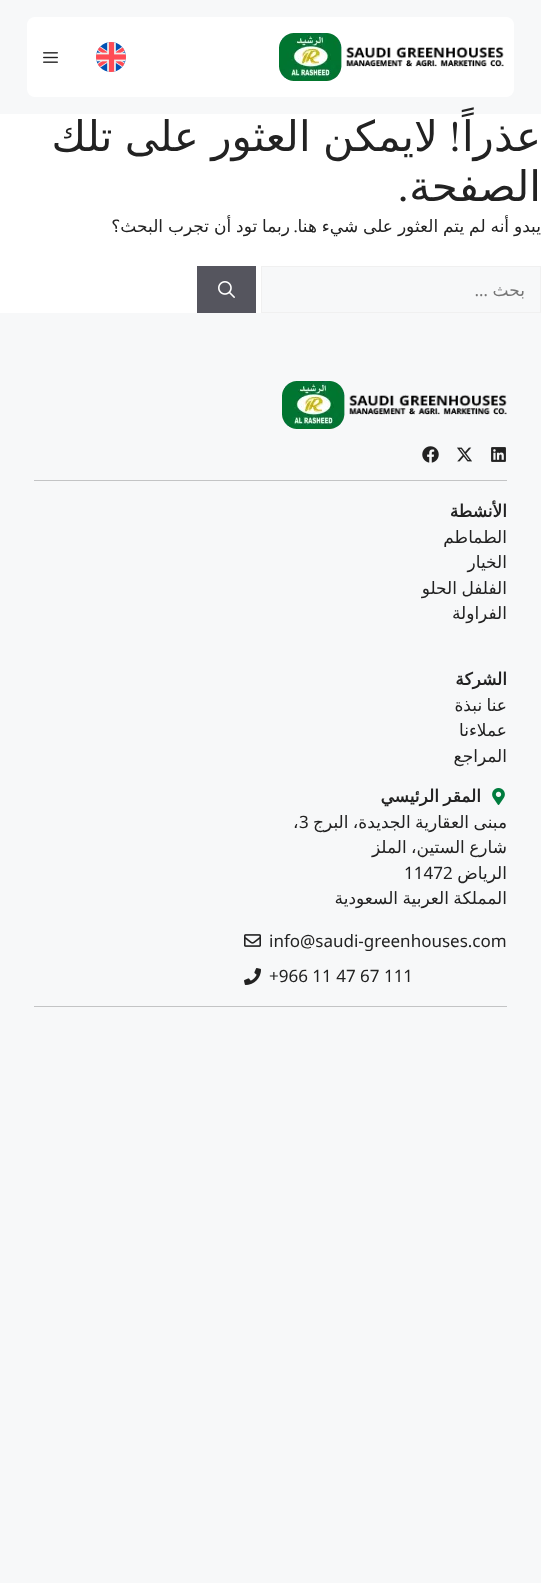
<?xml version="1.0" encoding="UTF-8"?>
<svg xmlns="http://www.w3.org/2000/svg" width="541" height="1583">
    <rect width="100%" height="100%" fill="#F7F8F9"/>
    <rect x="27" y="17" width="487" height="80" rx="8" fill="#FFFFFF"/>
    <image x="279" y="33" width="225" height="48" href="img_01.png"/>
    <image x="96" y="42" width="30" height="30" href="img_02.png"/>
    <image x="43" y="52" width="15" height="11" href="img_03.png"/>
    <rect x="0" y="114" width="541" height="199" fill="#FFFFFF"/>
    <text x="541" y="151" font-family="DejaVu Sans" font-size="42" direction="rtl" fill="#222222">عذراً</text>
    <text x="462" y="151" font-family="Optima" font-size="42" direction="rtl" fill="#222222">!</text>
    <text x="438" y="151" word-spacing="-1" font-family="DejaVu Sans" font-size="42" direction="rtl" fill="#222222">لايمكن العثور على تلك</text>
    <text x="541" y="201" font-family="DejaVu Sans" font-size="42" direction="rtl" fill="#222222">الصفحة</text>
    <text x="409" y="201" font-family="Optima" font-size="42" direction="rtl" fill="#222222">.</text>
    <text x="541" y="232" word-spacing="-0.5" font-family="DejaVu Sans" font-size="17" direction="rtl" fill="#222222">يبدو أنه لم يتم العثور على شيء هنا</text>
    <text x="298" y="232" font-family="Optima" font-size="17" direction="rtl" fill="#222222">.</text>
    <text x="290" y="232" word-spacing="-0.5" font-family="DejaVu Sans" font-size="17" direction="rtl" fill="#222222">ربما تود أن تجرب البحث؟</text>
    <rect x="261.5" y="266.5" width="279" height="46" fill="#F7F8F9" stroke="#F0F0F0"/>
    <text x="525" y="296" font-family="DejaVu Sans" font-size="17" direction="rtl" fill="#757575">بحث</text>
    <text x="488" y="296" font-family="Noto Sans" font-size="17" direction="rtl" fill="#757575">…</text>
    <rect x="197" y="266" width="59" height="47" fill="#55555E"/>
    <image x="218" y="281" width="17" height="17" href="img_04.png"/>
    <rect x="34" y="480" width="473" height="1" fill="#C3C4C5"/>
    <image x="282" y="381" width="225" height="48" href="img_05.png"/>
    <image x="491" y="447" width="15" height="15" href="img_06.png"/>
    <image x="457" y="447" width="15" height="15" href="img_07.png"/>
    <image x="422" y="446" width="17" height="17" href="img_08.png"/>
    <rect x="34" y="1006" width="473" height="1" fill="#C3C4C5"/>
    <text x="507" y="517" font-family="DejaVu Sans" font-size="17" font-weight="700" direction="rtl" fill="#222222">الأنشطة</text>
    <text font-family="DejaVu Sans" font-size="17" direction="rtl" fill="#222222">
        <tspan x="507" y="543">الطماطم</tspan>
        <tspan x="507" y="568">الخيار</tspan>
        <tspan x="507" y="594" word-spacing="-1">الفلفل الحلو</tspan>
        <tspan x="507" y="619">الفراولة</tspan>
    </text>
    <text x="507" y="685" font-family="DejaVu Sans" font-size="17" font-weight="700" direction="rtl" fill="#222222">الشركة</text>
    <text font-family="DejaVu Sans" font-size="17" direction="rtl" fill="#222222">
        <tspan x="507" y="711" word-spacing="-1">عنا نبذة</tspan>
        <tspan x="507" y="736">عملاءنا</tspan>
        <tspan x="507" y="762">المراجع</tspan>
    </text>
    <image x="492" y="788" width="13" height="17" href="img_09.png"/>
    <text x="481" y="802" word-spacing="-1" font-family="DejaVu Sans" font-size="17" font-weight="700" direction="rtl" fill="#222222">المقر الرئيسي</text>
    <text x="507" y="828" word-spacing="-1" font-family="DejaVu Sans" font-size="17" direction="rtl" fill="#222222">مبنى العقارية الجديدة، البرج</text>
    <text x="299" y="828" font-family="Noto Sans" font-size="17" fill="#222222">3</text>
    <text x="293" y="828" font-family="DejaVu Sans" font-size="17" fill="#222222">،</text>
    <text font-family="DejaVu Sans" font-size="17" direction="rtl" fill="#222222">
        <tspan x="507" y="853" word-spacing="-1">شارع الستين، الملز</tspan>
        <tspan x="507" y="879">الرياض</tspan>
    </text>
    <text x="404" y="879" font-family="Noto Sans" font-size="17" fill="#222222">11472</text>
    <text x="507" y="904" word-spacing="-1" font-family="DejaVu Sans" font-size="17" direction="rtl" fill="#222222">المملكة العربية السعودية</text>
    <text x="269" y="947" font-family="Noto Sans" font-size="17" fill="#222222">info@saudi-greenhouses.com</text>
    <image x="244" y="934" width="17" height="13" href="img_10.png"/>
    <text x="269" y="982" font-family="Noto Sans" font-size="17" fill="#222222">+966 11 47 67 111</text>
    <image x="244" y="968" width="17" height="17" href="img_11.png"/>
</svg>
